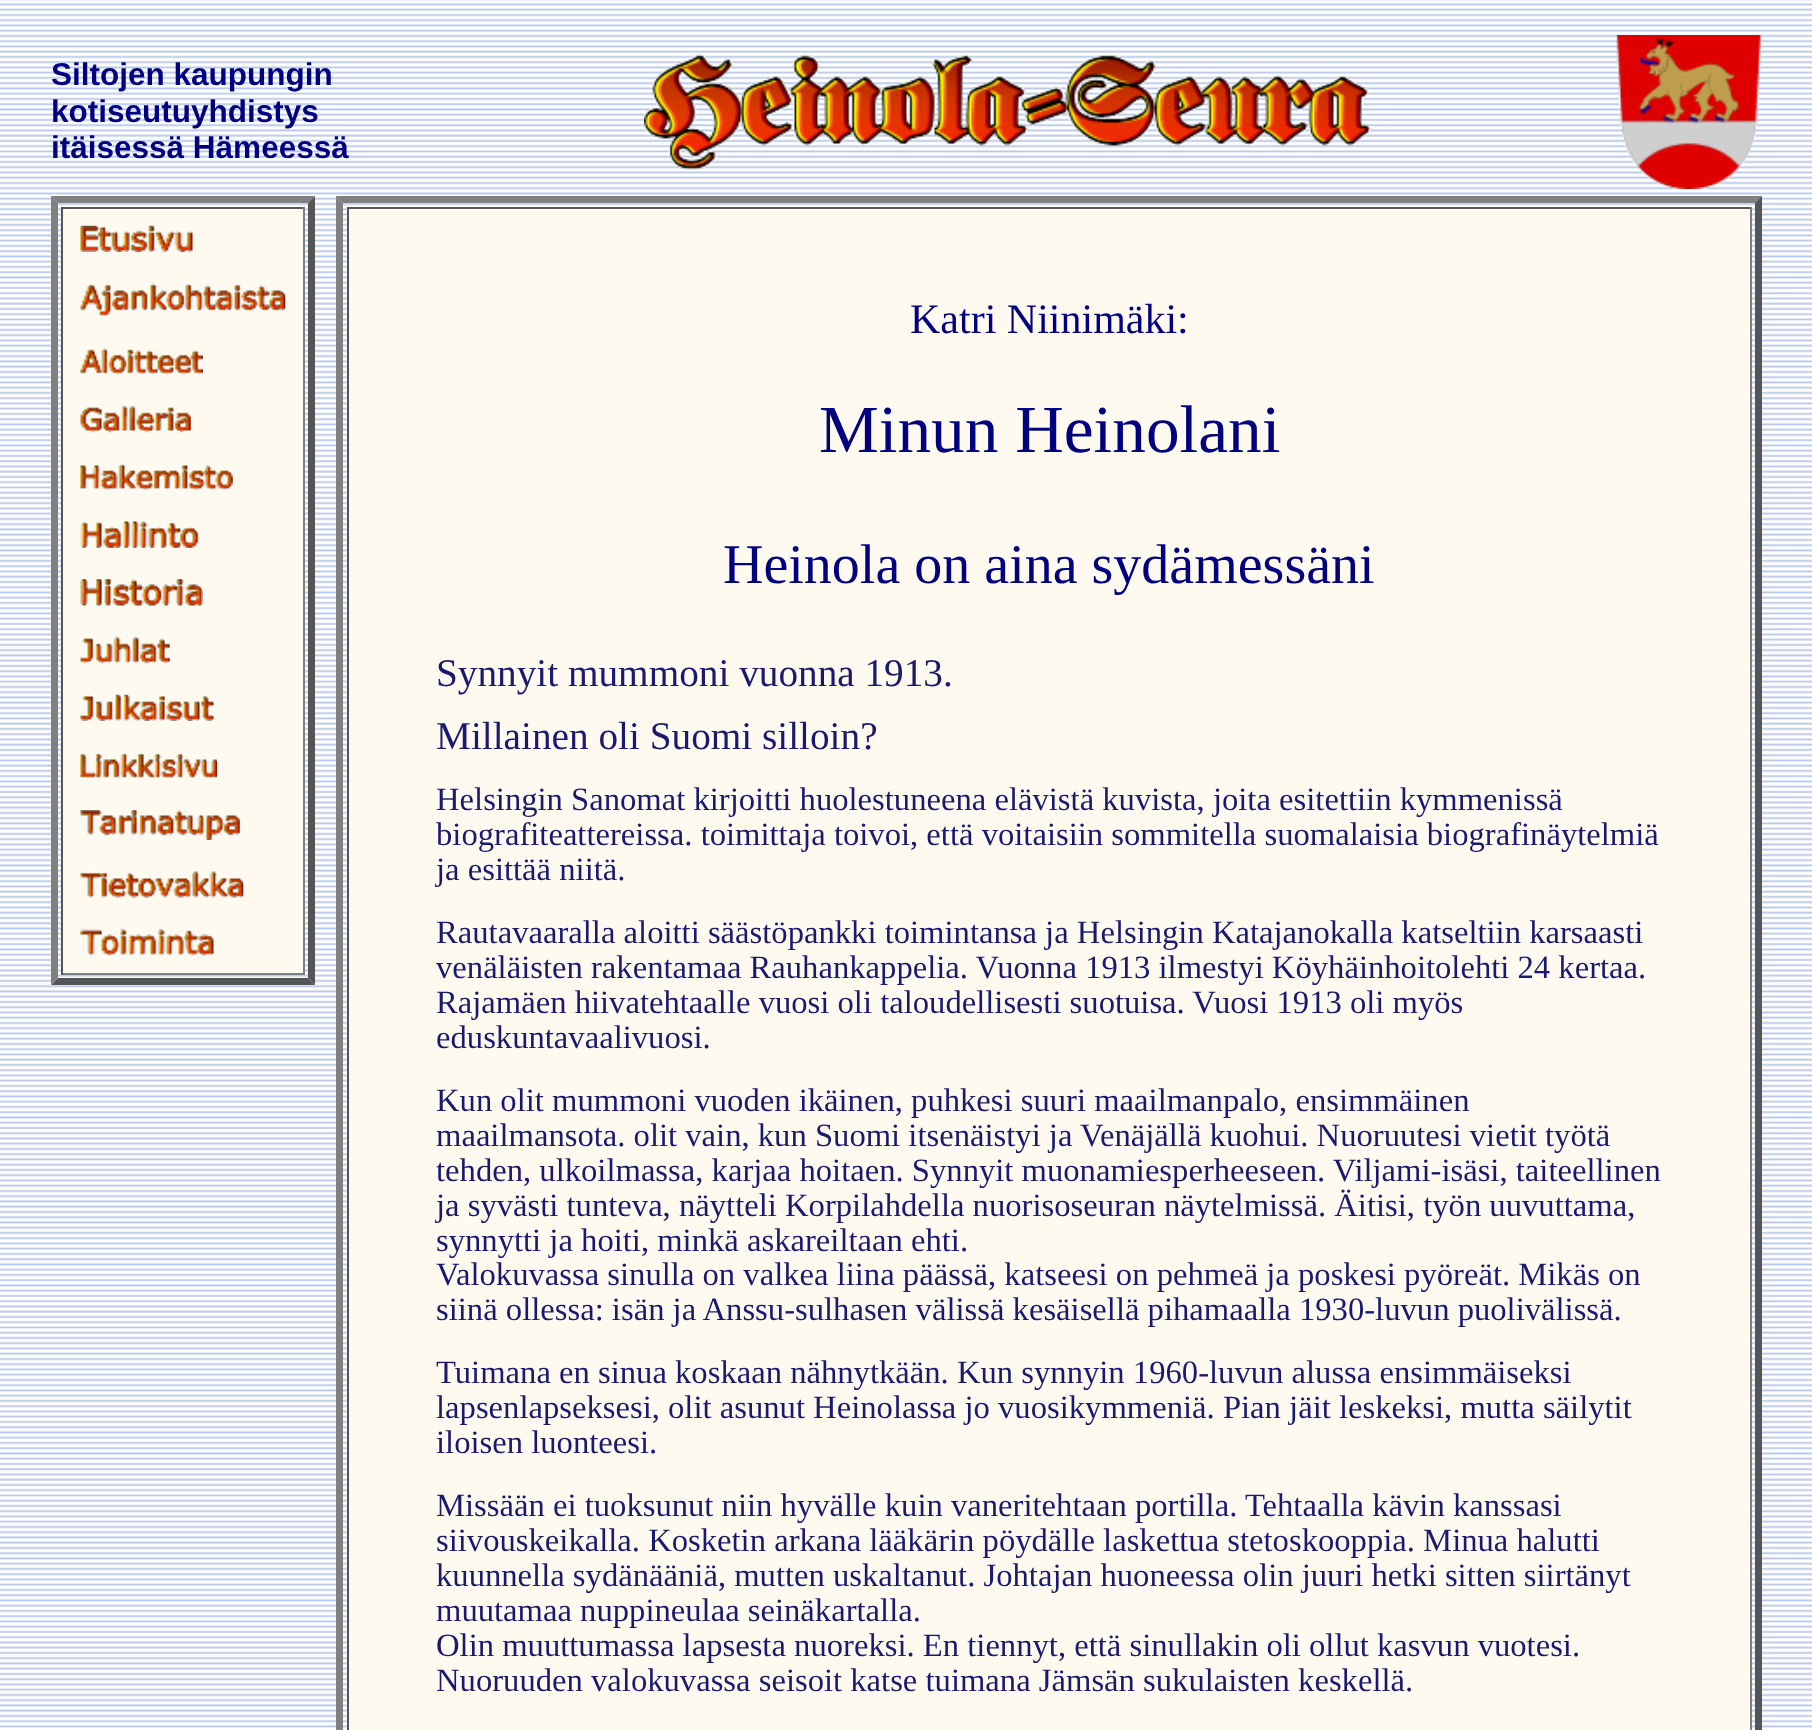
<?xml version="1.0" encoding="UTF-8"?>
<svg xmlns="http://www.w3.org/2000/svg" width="1812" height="1730">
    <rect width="100%" height="100%" fill="#FFFFFF"/>
    <image x="0" y="0" width="1812" height="1730" href="img_01.png"/>
    <text font-family="Liberation Sans" font-size="31.5" font-weight="700" fill="#000080">
        <tspan x="51" y="85">Siltojen kaupungin</tspan>
        <tspan x="51" y="122">kotiseutuyhdistys</tspan>
        <tspan x="51" y="158">itäisessä Hämeessä</tspan>
    </text>
    <image x="644" y="54" width="727" height="116" href="img_02.png"/>
    <image x="1616" y="35" width="145" height="154" href="img_03.png"/>
    <path d="M 51 196 H 315 L 308 203 H 58 Z" fill="#808080"/>
    <path d="M 315 196 V 985 L 308 978 V 203 Z" fill="#555555"/>
    <path d="M 315 985 H 51 L 58 978 H 308 Z" fill="#555555"/>
    <path d="M 51 985 V 196 L 58 203 V 978 Z" fill="#808080"/>
    <rect x="63" y="209" width="240" height="764" fill="#FFFAF0"/>
    <rect x="61" y="207" width="244" height="2" fill="#555555"/>
    <rect x="303" y="207" width="2" height="768" fill="#808080"/>
    <rect x="61" y="973" width="244" height="2" fill="#808080"/>
    <rect x="61" y="207" width="2" height="768" fill="#555555"/>
    <image x="80" y="225" width="113" height="27" href="img_04.png"/>
    <image x="80" y="283" width="206" height="34" href="img_05.png"/>
    <image x="80" y="348" width="123" height="27" href="img_06.png"/>
    <image x="80" y="406" width="111" height="27" href="img_07.png"/>
    <image x="80" y="463" width="153" height="27" href="img_08.png"/>
    <image x="80" y="521" width="120" height="27" href="img_09.png"/>
    <image x="80" y="579" width="123" height="27" href="img_10.png"/>
    <image x="80" y="637" width="90" height="27" href="img_11.png"/>
    <image x="80" y="694" width="134" height="27" href="img_12.png"/>
    <image x="80" y="752" width="137" height="27" href="img_13.png"/>
    <image x="80" y="810" width="160" height="30" href="img_14.png"/>
    <image x="80" y="871" width="164" height="27" href="img_15.png"/>
    <image x="80" y="929" width="134" height="27" href="img_16.png"/>
    <path d="M 336 196 H 1762 L 1755 203 H 343 Z" fill="#808080"/>
    <path d="M 1762 196 V 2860 L 1755 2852 V 203 Z" fill="#555555"/>
    <path d="M 336 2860 V 196 L 343 203 V 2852 Z" fill="#808080"/>
    <rect x="349" y="209" width="1401" height="1521" fill="#FFFAF0"/>
    <rect x="347" y="207" width="1405" height="2" fill="#555555"/>
    <rect x="1750" y="207" width="2" height="1523" fill="#808080"/>
    <rect x="347" y="207" width="2" height="1523" fill="#555555"/>
    <text x="910" y="333" font-family="Liberation Serif" font-size="42" fill="#000080">Katri Niinimäki:</text>
    <text x="819" y="452" font-family="Liberation Serif" font-size="67.25" fill="#000080">Minun Heinolani</text>
    <text x="723" y="583" font-family="Liberation Serif" font-size="56" fill="#000080">Heinola on aina sydämessäni</text>
    <text font-family="Liberation Serif" font-size="39.25" fill="#191970">
        <tspan x="436" y="686">Synnyit mummoni vuonna 1913.</tspan>
        <tspan x="436" y="749">Millainen oli Suomi silloin?</tspan>
    </text>
    <text font-family="Liberation Serif" font-size="32.65" fill="#191970">
        <tspan x="436" y="810">Helsingin Sanomat kirjoitti huolestuneena elävistä kuvista, joita esitettiin kymmenissä</tspan>
        <tspan x="436" y="845">biografiteattereissa. toimittaja toivoi, että voitaisiin sommitella suomalaisia biografinäytelmiä</tspan>
        <tspan x="436" y="880">ja esittää niitä.</tspan>
        <tspan x="436" y="943">Rautavaaralla aloitti säästöpankki toimintansa ja Helsingin Katajanokalla katseltiin karsaasti</tspan>
        <tspan x="436" y="978">venäläisten rakentamaa Rauhankappelia. Vuonna 1913 ilmestyi Köyhäinhoitolehti 24 kertaa.</tspan>
        <tspan x="436" y="1013">Rajamäen hiivatehtaalle vuosi oli taloudellisesti suotuisa. Vuosi 1913 oli myös</tspan>
        <tspan x="436" y="1048">eduskuntavaalivuosi.</tspan>
        <tspan x="436" y="1111">Kun olit mummoni vuoden ikäinen, puhkesi suuri maailmanpalo, ensimmäinen</tspan>
        <tspan x="436" y="1146">maailmansota. olit vain, kun Suomi itsenäistyi ja Venäjällä kuohui. Nuoruutesi vietit työtä</tspan>
        <tspan x="436" y="1181">tehden, ulkoilmassa, karjaa hoitaen. Synnyit muonamiesperheeseen. Viljami-isäsi, taiteellinen</tspan>
        <tspan x="436" y="1216">ja syvästi tunteva, näytteli Korpilahdella nuorisoseuran näytelmissä. Äitisi, työn uuvuttama,</tspan>
        <tspan x="436" y="1251">synnytti ja hoiti, minkä askareiltaan ehti.</tspan>
        <tspan x="436" y="1285">Valokuvassa sinulla on valkea liina päässä, katseesi on pehmeä ja poskesi pyöreät. Mikäs on</tspan>
        <tspan x="436" y="1320">siinä ollessa: isän ja Anssu-sulhasen välissä kesäisellä pihamaalla 1930-luvun puolivälissä.</tspan>
        <tspan x="436" y="1383">Tuimana en sinua koskaan nähnytkään. Kun synnyin 1960-luvun alussa ensimmäiseksi</tspan>
        <tspan x="436" y="1418">lapsenlapseksesi, olit asunut Heinolassa jo vuosikymmeniä. Pian jäit leskeksi, mutta säilytit</tspan>
        <tspan x="436" y="1453">iloisen luonteesi.</tspan>
        <tspan x="436" y="1516">Missään ei tuoksunut niin hyvälle kuin vaneritehtaan portilla. Tehtaalla kävin kanssasi</tspan>
        <tspan x="436" y="1551">siivouskeikalla. Kosketin arkana lääkärin pöydälle laskettua stetoskooppia. Minua halutti</tspan>
        <tspan x="436" y="1586">kuunnella sydänääniä, mutten uskaltanut. Johtajan huoneessa olin juuri hetki sitten siirtänyt</tspan>
        <tspan x="436" y="1621">muutamaa nuppineulaa seinäkartalla.</tspan>
        <tspan x="436" y="1656">Olin muuttumassa lapsesta nuoreksi. En tiennyt, että sinullakin oli ollut kasvun vuotesi.</tspan>
        <tspan x="436" y="1691">Nuoruuden valokuvassa seisoit katse tuimana Jämsän sukulaisten keskellä.</tspan>
    </text>
</svg>
